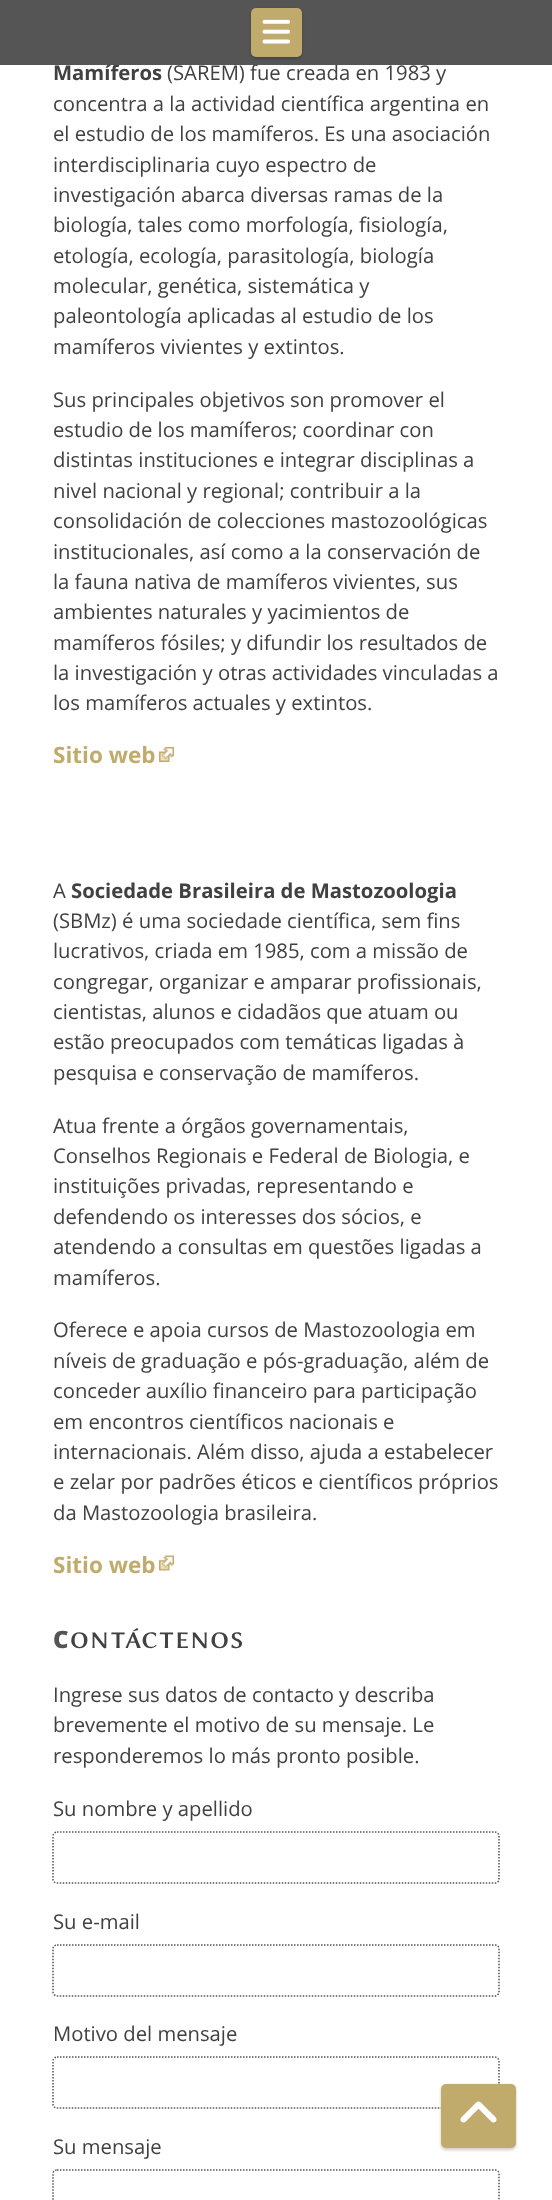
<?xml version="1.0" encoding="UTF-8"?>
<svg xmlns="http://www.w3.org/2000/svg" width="552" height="2200">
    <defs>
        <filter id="blur1" x="-50%" y="-200%" width="200%" height="500%"><feGaussianBlur stdDeviation="1.5"/></filter>
    </defs>
    <rect width="100%" height="100%" fill="#FFFFFF"/>
    <text x="53" y="80" font-family="Open Sans" font-size="20.25" font-weight="700" fill="#414141">Mamíferos</text>
    <text x="167" y="80" font-family="Open Sans" font-size="20.25" fill="#414141">(SAREM) fue creada en 1983 y</text>
    <rect x="0" y="0" width="552" height="65" fill="#555555"/>
    <rect x="251" y="9" width="51" height="50" rx="5" fill="#000000" fill-opacity="0.2" filter="url(#blur1)"/>
    <rect x="251" y="8" width="51" height="49" rx="5" fill="#C1AB6C"/>
    <image x="262" y="19" width="28" height="25" href="img_01.png"/>
    <text font-family="Open Sans" font-size="20.25" fill="#414141">
        <tspan x="53" y="111">concentra a la actividad científica argentina en</tspan>
        <tspan x="53" y="141">el estudio de los mamíferos. Es una asociación</tspan>
        <tspan x="53" y="172">interdisciplinaria cuyo espectro de</tspan>
        <tspan x="53" y="202">investigación abarca diversas ramas de la</tspan>
        <tspan x="53" y="232">biología, tales como morfología, fisiología,</tspan>
        <tspan x="53" y="263">etología, ecología, parasitología, biología</tspan>
        <tspan x="53" y="293">molecular, genética, sistemática y</tspan>
        <tspan x="53" y="323">paleontología aplicadas al estudio de los</tspan>
        <tspan x="53" y="354">mamíferos vivientes y extintos.</tspan>
    </text>
    <text font-family="Open Sans" font-size="20.25" fill="#414141">
        <tspan x="53" y="407">Sus principales objetivos son promover el</tspan>
        <tspan x="53" y="437">estudio de los mamíferos; coordinar con</tspan>
        <tspan x="53" y="467">distintas instituciones e integrar disciplinas a</tspan>
        <tspan x="53" y="498">nivel nacional y regional; contribuir a la</tspan>
        <tspan x="53" y="528">consolidación de colecciones mastozoológicas</tspan>
        <tspan x="53" y="559">institucionales, así como a la conservación de</tspan>
        <tspan x="53" y="589">la fauna nativa de mamíferos vivientes, sus</tspan>
        <tspan x="53" y="619">ambientes naturales y yacimientos de</tspan>
        <tspan x="53" y="650">mamíferos fósiles; y difundir los resultados de</tspan>
        <tspan x="53" y="680">la investigación y otras actividades vinculadas a</tspan>
        <tspan x="53" y="710">los mamíferos actuales y extintos.</tspan>
    </text>
    <text x="53" y="763" font-family="Open Sans" font-size="22.5" font-weight="700" fill="#C1AB6C">Sitio web</text>
    <image x="159" y="747" width="15" height="15" href="img_02.png"/>
    <text x="53" y="898" font-family="Open Sans" font-size="20.25" fill="#414141">A</text>
    <text x="71" y="898" font-family="Open Sans" font-size="20.25" font-weight="700" fill="#414141">Sociedade Brasileira de Mastozoologia</text>
    <text font-family="Open Sans" font-size="20.25" fill="#414141">
        <tspan x="53" y="928">(SBMz) é uma sociedade científica, sem fins</tspan>
        <tspan x="53" y="958">lucrativos, criada em 1985, com a missão de</tspan>
        <tspan x="53" y="989">congregar, organizar e amparar profissionais,</tspan>
        <tspan x="53" y="1019">cientistas, alunos e cidadãos que atuam ou</tspan>
        <tspan x="53" y="1049">estão preocupados com temáticas ligadas à</tspan>
        <tspan x="53" y="1080">pesquisa e conservação de mamíferos.</tspan>
    </text>
    <text font-family="Open Sans" font-size="20.25" fill="#414141">
        <tspan x="53" y="1133">Atua frente a órgãos governamentais,</tspan>
        <tspan x="53" y="1163">Conselhos Regionais e Federal de Biologia, e</tspan>
        <tspan x="53" y="1193">instituições privadas, representando e</tspan>
        <tspan x="53" y="1224">defendendo os interesses dos sócios, e</tspan>
        <tspan x="53" y="1254">atendendo a consultas em questões ligadas a</tspan>
        <tspan x="53" y="1285">mamíferos.</tspan>
    </text>
    <text font-family="Open Sans" font-size="20.25" fill="#414141">
        <tspan x="53" y="1337">Oferece e apoia cursos de Mastozoologia em</tspan>
        <tspan x="53" y="1368">níveis de graduação e pós-graduação, além de</tspan>
        <tspan x="53" y="1398">conceder auxílio financeiro para participação</tspan>
        <tspan x="53" y="1429">em encontros científicos nacionais e</tspan>
        <tspan x="53" y="1459">internacionais. Além disso, ajuda a estabelecer</tspan>
        <tspan x="53" y="1489">e zelar por padrões éticos e científicos próprios</tspan>
        <tspan x="53" y="1520">da Mastozoologia brasileira.</tspan>
    </text>
    <text x="53" y="1573" font-family="Open Sans" font-size="22.5" font-weight="700" fill="#C1AB6C">Sitio web</text>
    <image x="159" y="1555" width="15" height="16" href="img_03.png"/>
    <text x="53" y="1648" font-family="Noto Sans" font-size="24" font-weight="900" letter-spacing="1.5" fill="#555555">C</text>
    <text x="70" y="1648" font-family="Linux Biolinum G" font-size="24" font-weight="700" letter-spacing="1.5" fill="#414141">ONTÁCTENOS</text>
    <text font-family="Open Sans" font-size="20.25" fill="#414141">
        <tspan x="53" y="1702">Ingrese sus datos de contacto y describa</tspan>
        <tspan x="53" y="1732">brevemente el motivo de su mensaje. Le</tspan>
        <tspan x="53" y="1763">responderemos lo más pronto posible.</tspan>
    </text>
    <text x="53" y="1816" font-family="Open Sans" font-size="20.25" fill="#414141">Su nombre y apellido</text>
    <path d="M 57 1832 H 495 C 497 1832 499 1834 499 1836 V 1879.5 C 499 1881.5 497 1883 495 1883 H 57 C 55 1883 53 1881.5 53 1879.5 V 1836 C 53 1834 55 1832 57 1832 Z" fill="none" stroke="#555555" stroke-width="1.5" stroke-dasharray="1.5 1.5"/>
    <text x="53" y="1929" font-family="Open Sans" font-size="20.25" fill="#414141">Su e-mail</text>
    <path d="M 57 1945 H 495 C 497 1945 499 1946.5 499 1948.5 V 1992 C 499 1994 497 1996 495 1996 H 57 C 55 1996 53 1994 53 1992 V 1948.5 C 53 1946.5 55 1945 57 1945 Z" fill="none" stroke="#555555" stroke-width="1.5" stroke-dasharray="1.5 1.5"/>
    <text x="53" y="2041" font-family="Open Sans" font-size="20.25" fill="#414141">Motivo del mensaje</text>
    <path d="M 57 2057 H 495 C 497 2057 499 2059 499 2061 V 2104.5 C 499 2106.5 497 2108 495 2108 H 57 C 55 2108 53 2106.5 53 2104.5 V 2061 C 53 2059 55 2057 57 2057 Z" fill="none" stroke="#555555" stroke-width="1.5" stroke-dasharray="1.5 1.5"/>
    <text x="53" y="2154" font-family="Open Sans" font-size="20.25" fill="#414141">Su mensaje</text>
    <path d="M 57 2170 H 495 C 497 2170 499 2171.5 499 2173.5 V 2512.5 C 499 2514.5 497 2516 495 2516 H 57 C 55 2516 53 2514.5 53 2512.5 V 2173.5 C 53 2171.5 55 2170 57 2170 Z" fill="none" stroke="#555555" stroke-width="1.5" stroke-dasharray="1.5 1.5"/>
    <rect x="441" y="2085" width="75" height="65" rx="5" fill="#000000" fill-opacity="0.2" filter="url(#blur1)"/>
    <rect x="442" y="2085" width="73" height="62" rx="4" fill="#C1AB6C" stroke="#C1AB6C" stroke-width="2"/>
    <image x="460" y="2101" width="37" height="22" href="img_04.png"/>
</svg>
